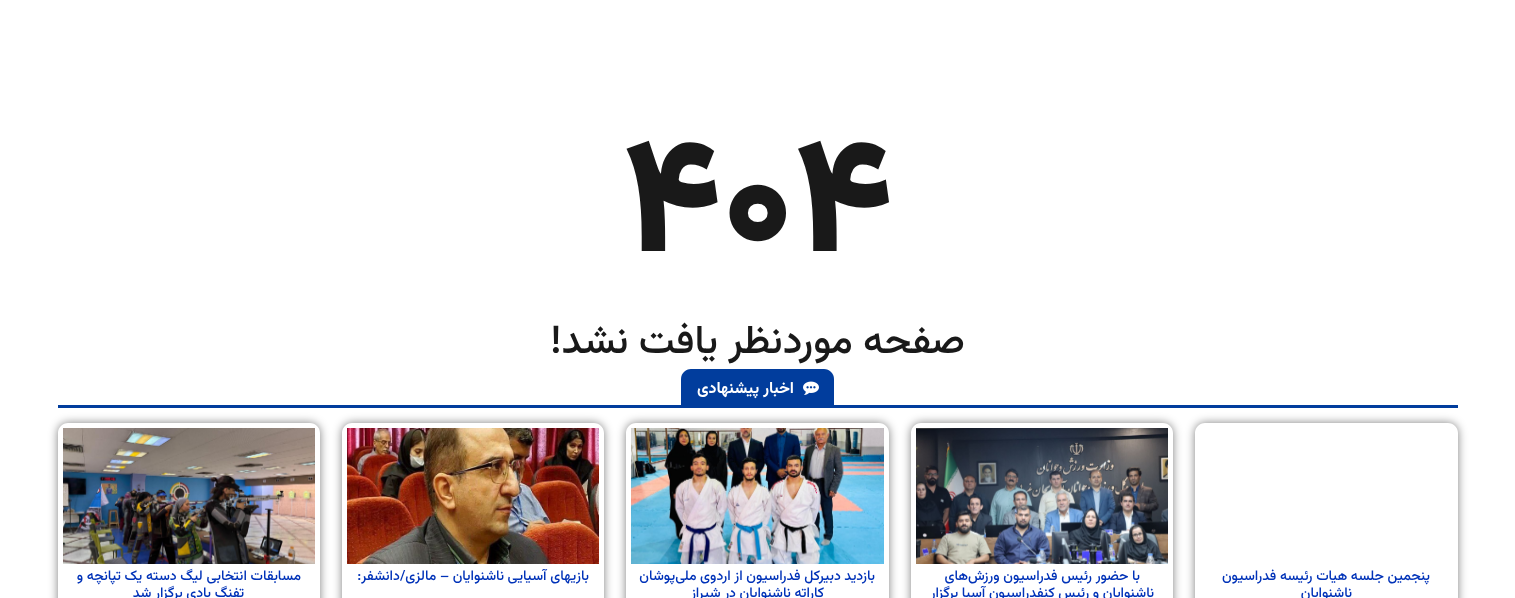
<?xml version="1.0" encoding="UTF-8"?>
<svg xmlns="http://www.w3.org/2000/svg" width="1515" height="598">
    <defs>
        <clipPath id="clip1"><path d="M 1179 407 H 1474 V 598 H 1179 Z M 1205 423 H 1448 C 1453.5 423 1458 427.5 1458 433 V 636 C 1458 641.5 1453.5 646 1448 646 H 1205 C 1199.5 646 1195 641.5 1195 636 V 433 C 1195 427.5 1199.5 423 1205 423 Z" clip-rule="evenodd"/></clipPath>
        <filter id="blur1" x="-50%" y="-200%" width="200%" height="500%"><feGaussianBlur stdDeviation="5"/></filter>
        <clipPath id="clip2"><path d="M 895 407 H 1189 V 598 H 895 Z M 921 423 H 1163 C 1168.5 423 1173 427.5 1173 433 V 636 C 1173 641.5 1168.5 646 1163 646 H 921 C 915.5 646 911 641.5 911 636 V 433 C 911 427.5 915.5 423 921 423 Z" clip-rule="evenodd"/></clipPath>
        <clipPath id="clip3"><path d="M 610 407 H 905 V 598 H 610 Z M 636 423 H 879 C 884.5 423 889 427.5 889 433 V 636 C 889 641.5 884.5 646 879 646 H 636 C 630.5 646 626 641.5 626 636 V 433 C 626 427.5 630.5 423 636 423 Z" clip-rule="evenodd"/></clipPath>
        <clipPath id="clip4"><path d="M 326 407 H 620 V 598 H 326 Z M 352 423 H 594 C 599.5 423 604 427.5 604 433 V 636 C 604 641.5 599.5 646 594 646 H 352 C 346.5 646 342 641.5 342 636 V 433 C 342 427.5 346.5 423 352 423 Z" clip-rule="evenodd"/></clipPath>
        <clipPath id="clip5"><path d="M 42 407 H 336 V 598 H 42 Z M 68 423 H 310 C 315.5 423 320 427.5 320 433 V 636 C 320 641.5 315.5 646 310 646 H 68 C 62.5 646 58 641.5 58 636 V 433 C 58 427.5 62.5 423 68 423 Z" clip-rule="evenodd"/></clipPath>
    </defs>
    <rect width="100%" height="100%" fill="#FFFFFF"/>
    <text x="623" y="251" font-family="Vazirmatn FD" font-size="163" font-weight="900" fill="#191919">404</text>
    <text x="965" y="353" font-family="Vazirmatn FD" font-size="40" font-weight="500" direction="rtl" fill="#191919">صفحه موردنظر یافت نشد!</text>
    <rect x="58" y="405" width="1400" height="3" fill="#013D9D"/>
    <path d="M 691 369 H 824 C 829.5 369 834 373.5 834 379 V 405 H 681 V 379 C 681 373.5 685.5 369 691 369 Z" fill="#013D9D"/>
    <image x="803" y="381" width="16" height="14" href="img_01.png"/>
    <text x="794" y="393" font-family="Vazirmatn FD" font-size="16" font-weight="700" direction="rtl" fill="#FFFFFF">اخبار پیشنهادی</text>
    <g clip-path="url(#clip1)">
        <rect x="1195" y="423" width="263" height="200" rx="10" fill="#000000" fill-opacity="0.5" filter="url(#blur1)"/>
    </g>
    <text x="1430" y="580" font-family="Vazirmatn FD" font-size="14" font-weight="500" direction="rtl" fill="#0032B8">پنجمین جلسه هیات رئیسه فدراسیون</text>
    <text x="1352" y="597" font-family="Vazirmatn FD" font-size="14" font-weight="500" direction="rtl" fill="#0032B8">ناشنوایان</text>
    <g clip-path="url(#clip2)">
        <rect x="911" y="423" width="262" height="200" rx="10" fill="#000000" fill-opacity="0.5" filter="url(#blur1)"/>
    </g>
    <image x="916" y="428" width="252" height="136" href="img_02.png"/>
    <text x="1140" y="580" font-family="Vazirmatn FD" font-size="14" font-weight="500" direction="rtl" fill="#0032B8">با حضور رئیس فدراسیون ورزش‌های</text>
    <text x="1154" y="597" font-family="Vazirmatn FD" font-size="14" font-weight="500" direction="rtl" fill="#0032B8">ناشنوایان و رئیس کنفدراسیون آسیا برگزار</text>
    <g clip-path="url(#clip3)">
        <rect x="626" y="423" width="263" height="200" rx="10" fill="#000000" fill-opacity="0.5" filter="url(#blur1)"/>
    </g>
    <image x="631" y="428" width="253" height="136" href="img_03.png"/>
    <text x="875" y="580" font-family="Vazirmatn FD" font-size="14" font-weight="500" direction="rtl" fill="#0032B8">بازدید دبیرکل فدراسیون از اردوی ملی‌پوشان</text>
    <text x="824" y="597" font-family="Vazirmatn FD" font-size="14" font-weight="500" direction="rtl" fill="#0032B8">کاراته ناشنوایان در شیراز</text>
    <g clip-path="url(#clip4)">
        <rect x="342" y="423" width="262" height="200" rx="10" fill="#000000" fill-opacity="0.5" filter="url(#blur1)"/>
    </g>
    <image x="347" y="428" width="252" height="136" href="img_04.png"/>
    <text x="589" y="580" font-family="Vazirmatn FD" font-size="14" font-weight="500" direction="rtl" fill="#0032B8">بازیهای آسیایی ناشنوایان – مالزی/دانشفر:</text>
    <g clip-path="url(#clip5)">
        <rect x="58" y="423" width="262" height="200" rx="10" fill="#000000" fill-opacity="0.5" filter="url(#blur1)"/>
    </g>
    <image x="63" y="428" width="252" height="136" href="img_05.png"/>
    <text x="301" y="580" font-family="Vazirmatn FD" font-size="14" font-weight="500" direction="rtl" fill="#0032B8">مسابقات انتخابی لیگ دسته یک تپانچه و</text>
    <text x="244" y="597" font-family="Vazirmatn FD" font-size="14" font-weight="500" direction="rtl" fill="#0032B8">تفنگ بادی برگزار شد</text>
</svg>
